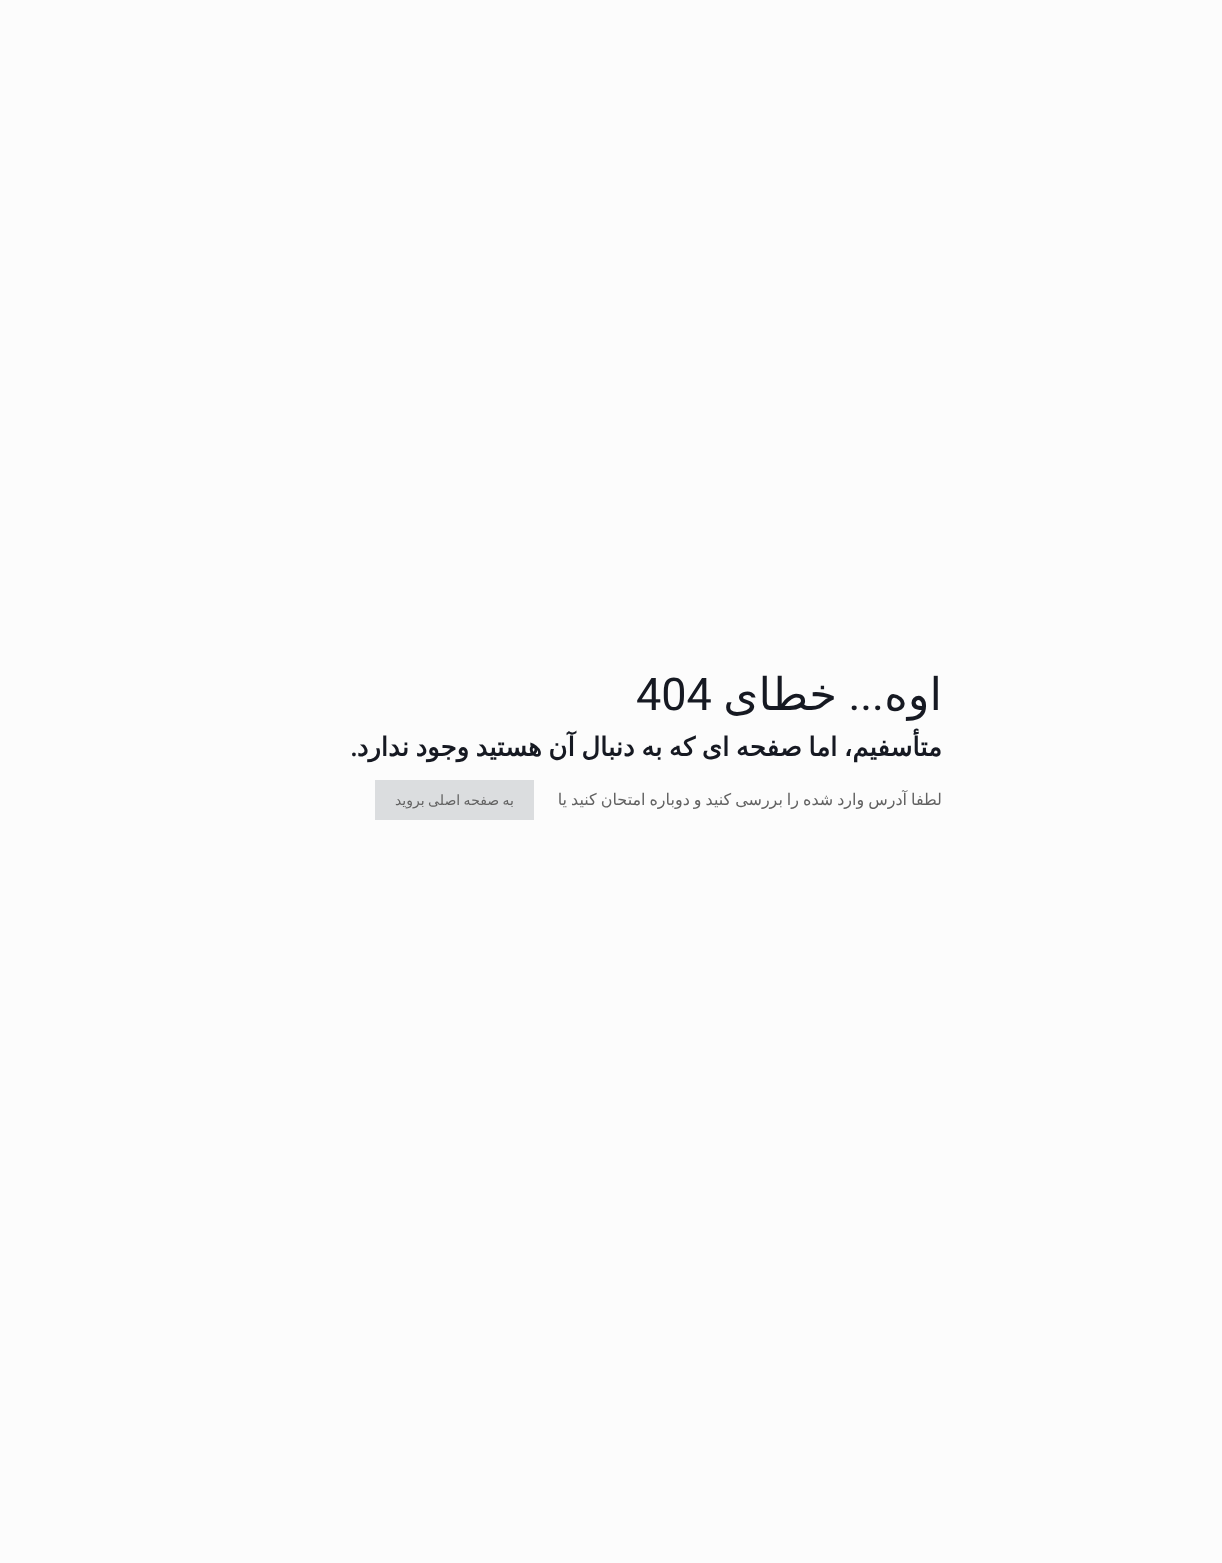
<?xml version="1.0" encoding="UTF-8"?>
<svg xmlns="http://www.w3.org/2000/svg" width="1222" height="1563">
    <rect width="100%" height="100%" fill="#FCFCFC"/>
    <text x="942" y="710" font-family="DejaVu Sans" font-size="45" direction="rtl" fill="#161922">اوه</text>
    <text x="884" y="710" font-family="Roboto" font-size="45" direction="rtl" fill="#161922">...</text>
    <text x="837" y="710" font-family="DejaVu Sans" font-size="45" direction="rtl" fill="#161922">خطای</text>
    <text x="636" y="710" font-family="Roboto" font-size="45" fill="#161922">404</text>
    <text x="942" y="756" word-spacing="-1.75" font-family="DejaVu Sans" font-size="26" font-weight="700" direction="rtl" fill="#161922">متأسفیم، اما صفحه ای که به دنبال آن هستید وجود ندارد</text>
    <text x="357" y="756" font-family="Roboto" font-size="26" font-weight="700" direction="rtl" fill="#161922">.</text>
    <text x="942" y="805" word-spacing="-1.1" font-family="DejaVu Sans" font-size="16" direction="rtl" fill="#626262">لطفا آدرس وارد شده را بررسی کنید و دوباره امتحان کنید یا</text>
    <rect x="375" y="780" width="159" height="40" fill="#DBDDDF"/>
    <text x="514" y="805" word-spacing="-1" font-family="DejaVu Sans" font-size="14" direction="rtl" fill="#626262">به صفحه اصلی بروید</text>
</svg>
